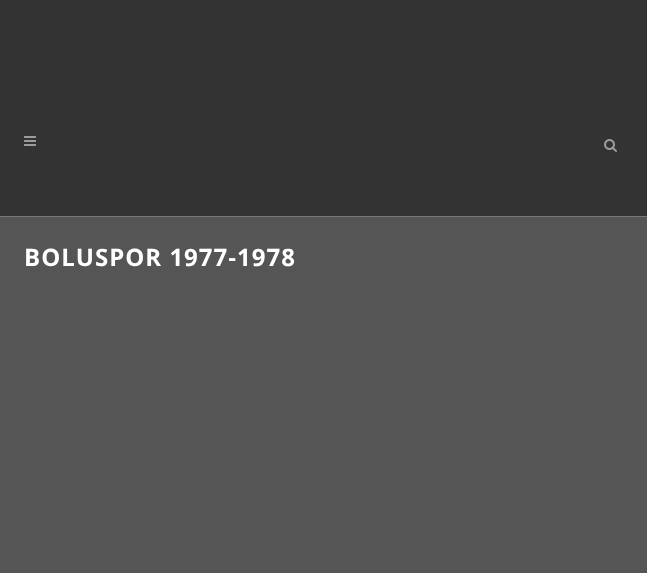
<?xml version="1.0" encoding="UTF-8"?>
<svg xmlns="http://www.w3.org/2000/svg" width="647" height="573">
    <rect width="100%" height="100%" fill="#555555"/>
    <rect x="0" y="0" width="647" height="216" fill="#333333"/>
    <rect x="0" y="216" width="647" height="1" fill="#777777"/>
    <image x="24" y="136" width="12" height="10" href="img_01.png"/>
    <image x="604" y="139" width="13" height="13" href="img_02.png"/>
    <text x="24" y="266" font-family="Open Sans" font-size="24" font-weight="700" letter-spacing="1" fill="#FFFFFF">BOLUSPOR 1977-1978</text>
</svg>
